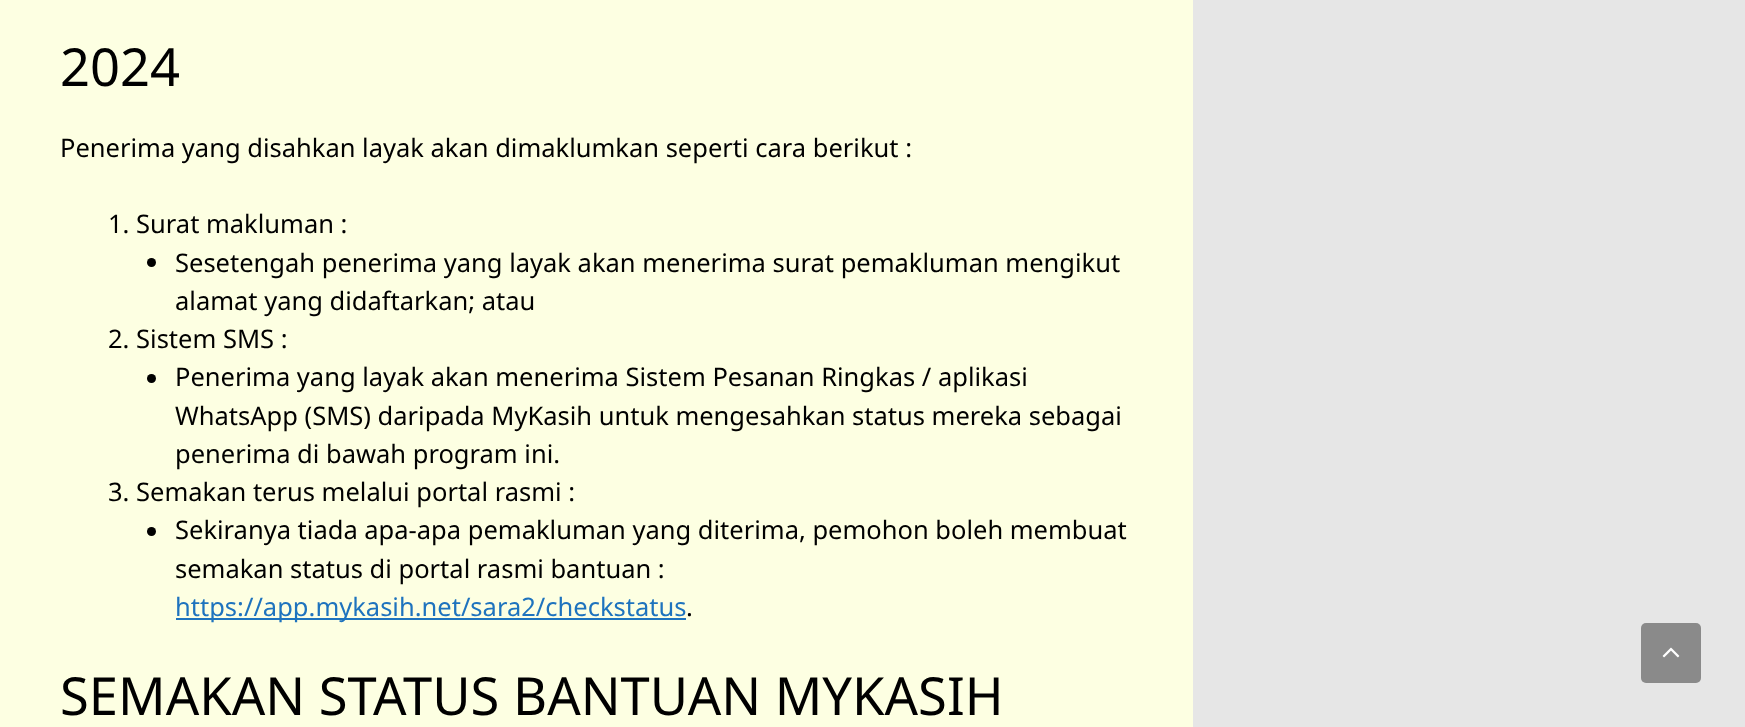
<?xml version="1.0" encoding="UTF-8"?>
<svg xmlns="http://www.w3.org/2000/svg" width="1745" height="727">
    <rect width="100%" height="100%" fill="#E6E6E6"/>
    <rect x="0" y="0" width="1193" height="727" fill="#FDFFE2"/>
    <text x="60" y="86" font-family="Noto Sans" font-size="52.5" fill="#000000">2024</text>
    <text x="60" y="157" font-family="Noto Sans" font-size="25.5" fill="#000000">Penerima yang disahkan layak akan dimaklumkan seperti cara berikut :</text>
    <text x="108" y="233" font-family="Noto Sans" font-size="25.5" fill="#000000">1. Surat makluman :</text>
    <circle cx="151.5" cy="262.5" r="4.5" fill="#000000"/>
    <text font-family="Noto Sans" font-size="25.5" fill="#000000">
        <tspan x="175" y="272">Sesetengah penerima yang layak akan menerima surat pemakluman mengikut</tspan>
        <tspan x="175" y="310">alamat yang didaftarkan; atau</tspan>
    </text>
    <text x="108" y="348" font-family="Noto Sans" font-size="25.5" fill="#000000">2. Sistem SMS :</text>
    <circle cx="151.5" cy="378.5" r="4.5" fill="#000000"/>
    <text font-family="Noto Sans" font-size="25.5" fill="#000000">
        <tspan x="175" y="386">Penerima yang layak akan menerima Sistem Pesanan Ringkas / aplikasi</tspan>
        <tspan x="175" y="425">WhatsApp (SMS) daripada MyKasih untuk mengesahkan status mereka sebagai</tspan>
        <tspan x="175" y="463">penerima di bawah program ini.</tspan>
    </text>
    <text x="108" y="501" font-family="Noto Sans" font-size="25.5" fill="#000000">3. Semakan terus melalui portal rasmi :</text>
    <circle cx="151.5" cy="531.5" r="4.5" fill="#000000"/>
    <text font-family="Noto Sans" font-size="25.5" fill="#000000">
        <tspan x="175" y="539">Sekiranya tiada apa-apa pemakluman yang diterima, pemohon boleh membuat</tspan>
        <tspan x="175" y="578">semakan status di portal rasmi bantuan :</tspan>
    </text>
    <rect x="176" y="618" width="510" height="2" fill="#1E73BE"/>
    <text x="175" y="616" font-family="Noto Sans" font-size="25.5" fill="#1E73BE">https://app.mykasih.net/sara2/checkstatus</text>
    <text x="686" y="616" font-family="Noto Sans" font-size="25.5" fill="#000000">.</text>
    <text x="60" y="715" font-family="Noto Sans" font-size="52.5" fill="#000000">SEMAKAN STATUS BANTUAN MYKASIH</text>
    <rect x="1641" y="623" width="60" height="60" rx="5" fill="#8A8A8A"/>
    <image x="1662" y="647" width="18" height="11" href="img_01.png"/>
</svg>
